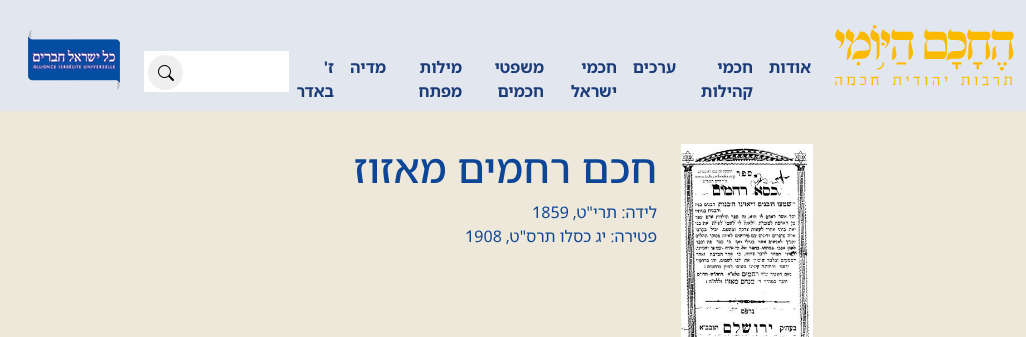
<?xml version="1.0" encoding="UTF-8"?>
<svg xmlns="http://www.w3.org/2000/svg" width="1026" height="337">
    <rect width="100%" height="100%" fill="#EEE8DB"/>
    <rect x="0" y="0" width="1026" height="111" fill="#E2E6EE"/>
    <image x="835" y="25" width="179" height="61" href="img_01.png"/>
    <text x="811" y="73" font-family="Noto Sans Hebrew" font-size="16" font-weight="700" direction="rtl" fill="#1C3C79">אודות</text>
    <text font-family="Noto Sans Hebrew" font-size="16" font-weight="700" direction="rtl" fill="#1C3C79">
        <tspan x="753" y="73">חכמי</tspan>
        <tspan x="753" y="97">קהילות</tspan>
    </text>
    <text x="676" y="73" font-family="Noto Sans Hebrew" font-size="16" font-weight="700" direction="rtl" fill="#1C3C79">ערכים</text>
    <text font-family="Noto Sans Hebrew" font-size="16" font-weight="700" direction="rtl" fill="#1C3C79">
        <tspan x="617" y="73">חכמי</tspan>
        <tspan x="617" y="97">ישראל</tspan>
    </text>
    <text font-family="Noto Sans Hebrew" font-size="16" font-weight="700" direction="rtl" fill="#1C3C79">
        <tspan x="544" y="73">משפטי</tspan>
        <tspan x="544" y="97">חכמים</tspan>
    </text>
    <text font-family="Noto Sans Hebrew" font-size="16" font-weight="700" direction="rtl" fill="#1C3C79">
        <tspan x="462" y="73">מילות</tspan>
        <tspan x="462" y="97">מפתח</tspan>
    </text>
    <text x="386" y="73" font-family="Noto Sans Hebrew" font-size="16" font-weight="700" direction="rtl" fill="#1C3C79">מדיה</text>
    <text font-family="Noto Sans Hebrew" font-size="16" font-weight="700" direction="rtl" fill="#1C3C79">
        <tspan x="334" y="73">ז'</tspan>
        <tspan x="334" y="97">באדר</tspan>
    </text>
    <rect x="144" y="51" width="145" height="41" fill="#FFFFFF"/>
    <circle cx="165.5" cy="72.5" r="17.5" fill="#EFEFEF"/>
    <image x="158" y="65" width="16" height="16" href="img_02.png"/>
    <image x="28" y="30" width="92" height="60" href="img_03.png"/>
    <image x="681" y="144" width="132" height="193" href="img_04.png"/>
    <text x="657" y="183" font-family="Noto Sans Hebrew" font-size="40" font-weight="500" direction="rtl" fill="#0D4597">חכם רחמים מאזוז</text>
    <text x="657" y="218" font-family="Noto Sans Hebrew" font-size="16" direction="rtl" fill="#0D4597">לידה:</text>
    <text x="617" y="218" font-family="Noto Sans Hebrew" font-size="16" direction="rtl" fill="#0D4597">תרי"ט,</text>
    <text x="532" y="218" font-family="Noto Sans Hebrew" font-size="16" fill="#0D4597">1859</text>
    <text x="657" y="242" font-family="Noto Sans Hebrew" font-size="16" direction="rtl" fill="#0D4597">פטירה: יג כסלו תרס"ט,</text>
    <text x="465" y="242" font-family="Noto Sans Hebrew" font-size="16" fill="#0D4597">1908</text>
</svg>
